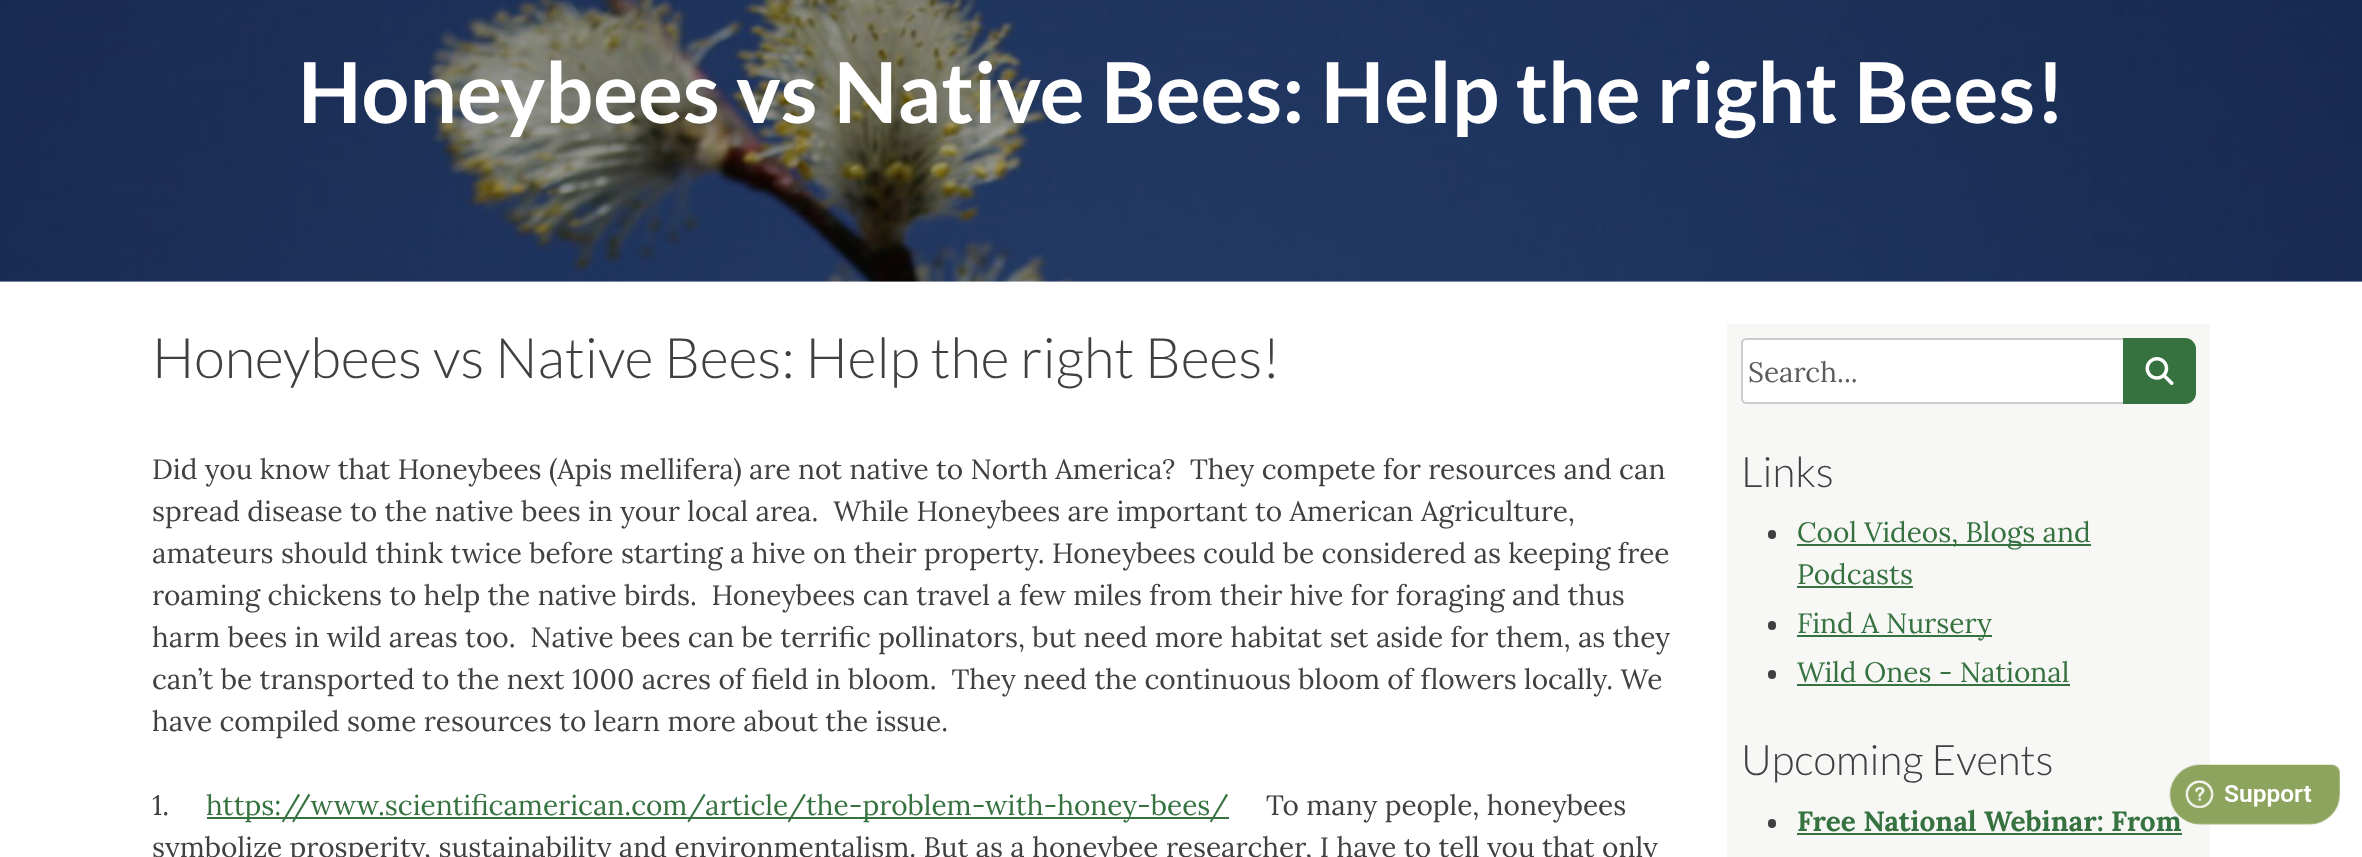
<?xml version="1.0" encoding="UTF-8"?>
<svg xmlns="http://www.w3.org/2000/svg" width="2362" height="857">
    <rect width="100%" height="100%" fill="#FFFFFF"/>
    <image x="0" y="0" width="2362" height="282" href="img_01.png"/>
    <text x="298" y="123" font-family="Lato" font-size="84" font-weight="700" fill="#FFFFFF">Honeybees vs Native Bees: Help the right Bees!</text>
    <text x="152" y="378" font-family="Lato" font-size="56" font-weight="300" fill="#404040">Honeybees vs Native Bees: Help the right Bees!</text>
    <text font-family="Lora" font-size="28" fill="#404040" xml:space="preserve"><tspan x="152" y="479">Did you know that Honeybees (Apis mellifera) are not native to North America?  They compete for resources and can</tspan><tspan x="152" y="521">spread disease to the native bees in your local area.  While Honeybees are important to American Agriculture,</tspan><tspan x="152" y="563">amateurs should think twice before starting a hive on their property. Honeybees could be considered as keeping free</tspan><tspan x="152" y="605">roaming chickens to help the native birds.  Honeybees can travel a few miles from their hive for foraging and thus</tspan><tspan x="152" y="647">harm bees in wild areas too.  Native bees can be terrific pollinators, but need more habitat set aside for them, as they</tspan><tspan x="152" y="689">can’t be transported to the next 1000 acres of field in bloom.  They need the continuous bloom of flowers locally. We</tspan><tspan x="152" y="731">have compiled some resources to learn more about the issue.</tspan></text>
    <text x="152" y="815" font-family="Lora" font-size="28" fill="#404040">1.</text>
    <rect x="207" y="817" width="1022" height="2" fill="#35723F"/>
    <text x="206" y="815" font-family="Lora" font-size="28" fill="#35723F">https://www.scientificamerican.com/article/the-problem-with-honey-bees/</text>
    <text x="1266" y="815" font-family="Lora" font-size="28" fill="#404040">To many people, honeybees</text>
    <text x="152" y="857" font-family="Lora" font-size="28" fill="#404040">symbolize prosperity, sustainability and environmentalism. But as a honeybee researcher, I have to tell you that only</text>
    <rect x="1727" y="324" width="483" height="533" fill="#F7F7F5"/>
    <path d="M 1746 339 H 2124 V 403 H 1746 C 1744 403 1742 401 1742 399 V 343 C 1742 341 1744 339 1746 339 Z" fill="#FFFFFF" stroke="#CCCCCC" stroke-width="2"/>
    <text x="1748" y="382" font-family="Lora" font-size="28" fill="#595C5F">Search...</text>
    <path d="M 2124 339 H 2185 C 2190.5 339 2195 343.5 2195 349 V 393 C 2195 398.5 2190.5 403 2185 403 H 2124 Z" fill="#35723F" stroke="#35723F" stroke-width="2"/>
    <image x="2145" y="357" width="29" height="28" href="img_02.png"/>
    <text x="1741" y="487" font-family="Lato" font-size="42" font-weight="300" fill="#404040">Links</text>
    <rect x="1768" y="530" width="8" height="9" rx="4" fill="#404040"/>
    <rect x="1797" y="544" width="294" height="2" fill="#35723F"/>
    <text font-family="Lora" font-size="28" fill="#35723F">
        <tspan x="1797" y="542">Cool Videos, Blogs and</tspan>
        <tspan x="1797" y="584">Podcasts</tspan>
    </text>
    <rect x="1797" y="586" width="116" height="2" fill="#35723F"/>
    <rect x="1768" y="621" width="8" height="9" rx="4" fill="#404040"/>
    <rect x="1797" y="635" width="195" height="2" fill="#35723F"/>
    <text x="1797" y="633" font-family="Lora" font-size="28" fill="#35723F">Find A Nursery</text>
    <rect x="1768" y="670" width="8" height="9" rx="4" fill="#404040"/>
    <text x="1797" y="682" font-family="Lora" font-size="28" fill="#35723F">Wild Ones - National</text>
    <rect x="1797" y="684" width="273" height="2" fill="#35723F"/>
    <text x="1741" y="775" font-family="Lato" font-size="42" font-weight="300" fill="#404040">Upcoming Events</text>
    <rect x="1768" y="819" width="8" height="9" rx="4" fill="#404040"/>
    <text x="1797" y="831" font-family="Lora" font-size="28" font-weight="700" fill="#35723F">Free National Webinar: From</text>
    <rect x="1797" y="833" width="385" height="2" fill="#35723F"/>
    <image x="2169" y="764" width="171" height="61" href="img_03.png"/>
</svg>
